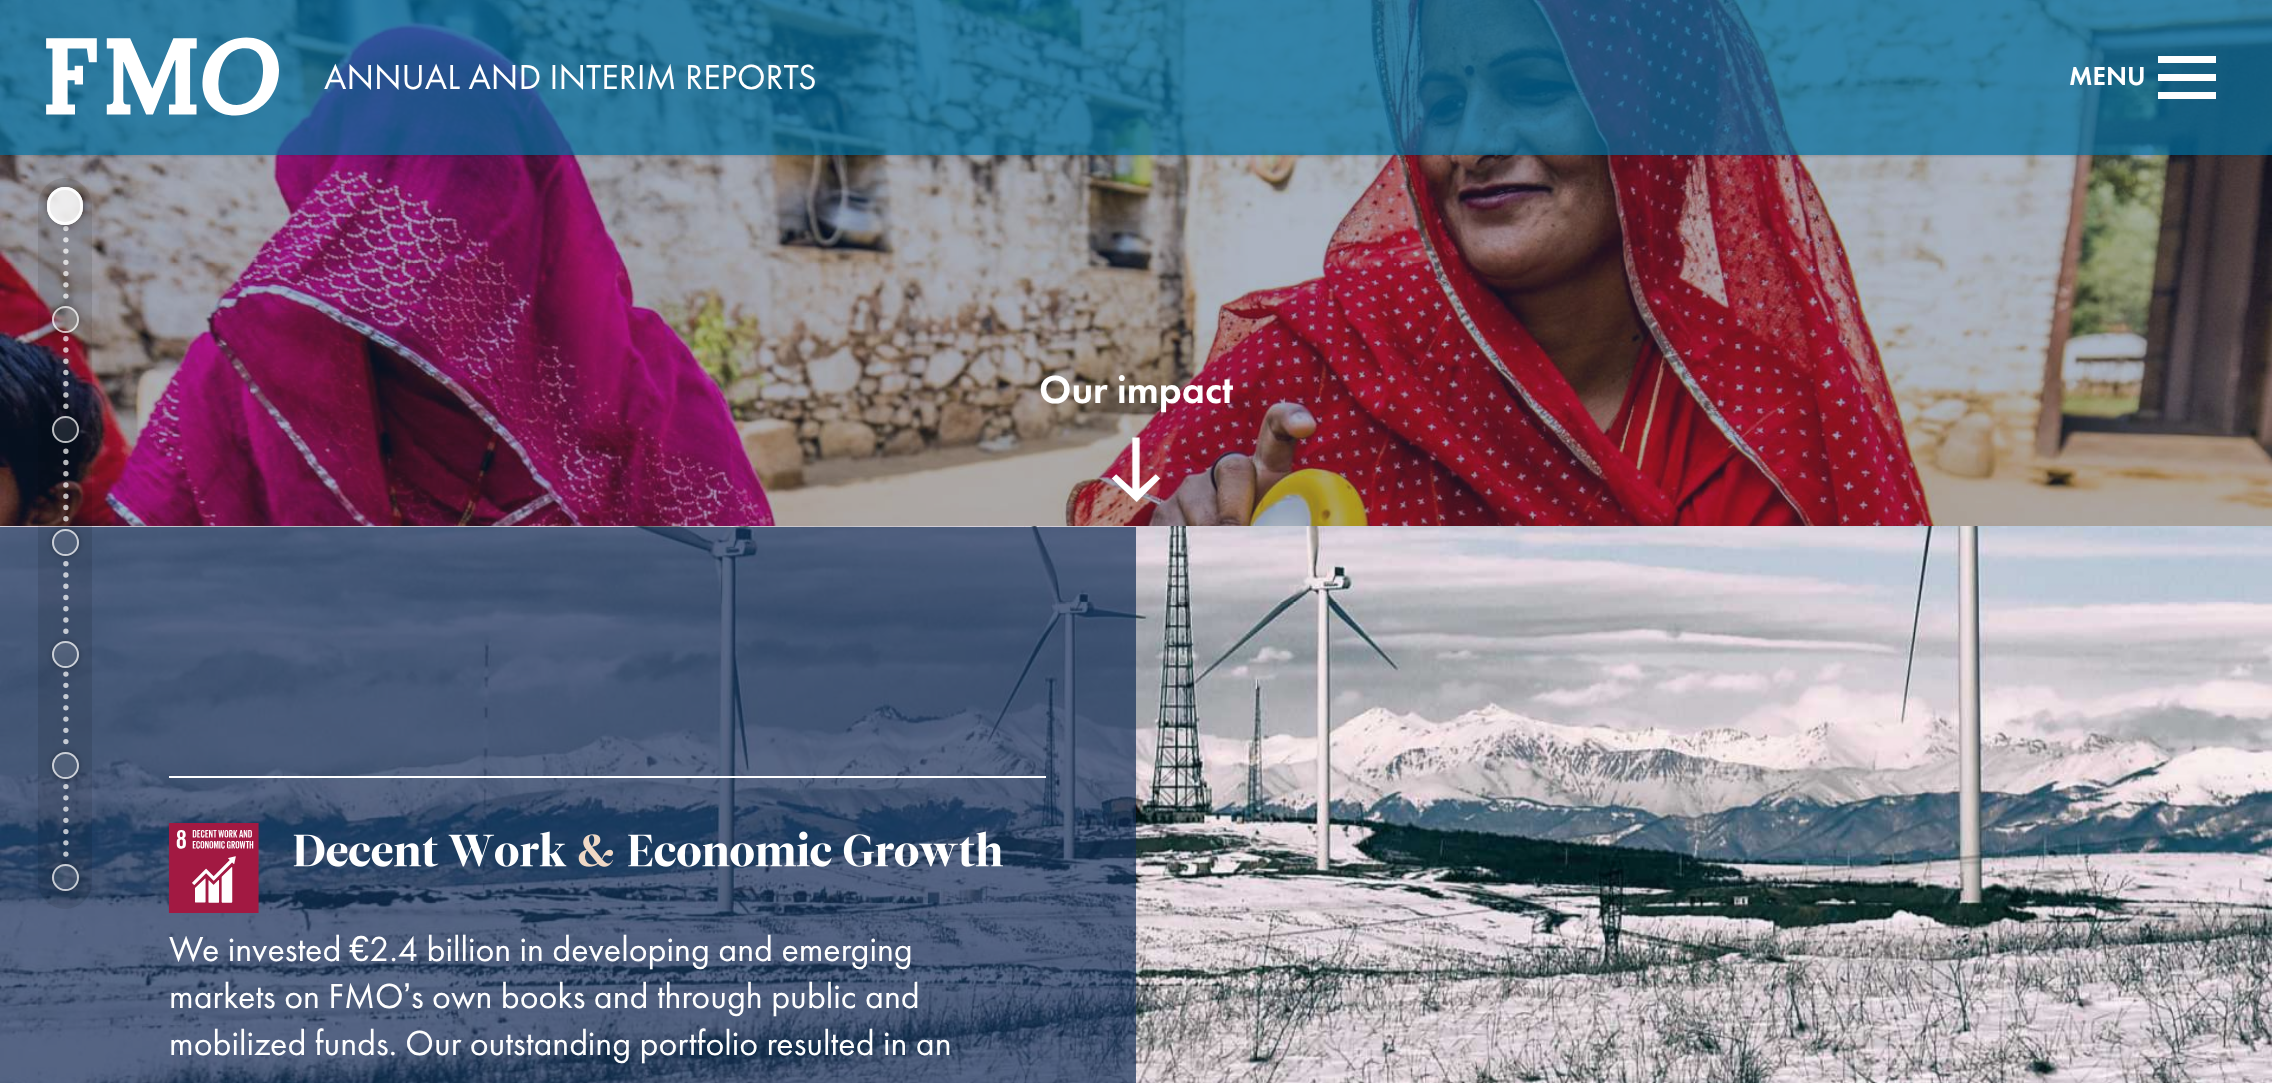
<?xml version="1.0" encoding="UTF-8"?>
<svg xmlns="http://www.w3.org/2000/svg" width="2272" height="1083">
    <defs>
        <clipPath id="clip1"><rect x="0" y="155" width="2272" height="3"/></clipPath>
        <filter id="blur1" x="-50%" y="-200%" width="200%" height="500%"><feGaussianBlur stdDeviation="2"/></filter>
        <clipPath id="clip2"><path d="M 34 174 H 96 V 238 H 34 Z M 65 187 C 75 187 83 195 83 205 V 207 C 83 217 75 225 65 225 C 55 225 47 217 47 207 V 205 C 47 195 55 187 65 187 Z" clip-rule="evenodd"/></clipPath>
        <filter id="blur2" x="-50%" y="-200%" width="200%" height="500%"><feGaussianBlur stdDeviation="4"/></filter>
        <clipPath id="clip3"><path d="M 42 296 H 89 V 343 H 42 Z M 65.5 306 C 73 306 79 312 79 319.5 C 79 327 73 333 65.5 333 C 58 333 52 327 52 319.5 C 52 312 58 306 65.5 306 Z" clip-rule="evenodd"/></clipPath>
        <filter id="blur3" x="-50%" y="-200%" width="200%" height="500%"><feGaussianBlur stdDeviation="3"/></filter>
        <clipPath id="clip4"><path d="M 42 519 H 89 V 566 H 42 Z M 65.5 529 C 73 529 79 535 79 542.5 C 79 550 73 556 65.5 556 C 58 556 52 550 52 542.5 C 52 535 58 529 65.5 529 Z" clip-rule="evenodd"/></clipPath>
        <clipPath id="clip5"><path d="M 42 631 H 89 V 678 H 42 Z M 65.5 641 C 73 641 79 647 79 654.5 C 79 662 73 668 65.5 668 C 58 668 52 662 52 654.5 C 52 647 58 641 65.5 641 Z" clip-rule="evenodd"/></clipPath>
        <clipPath id="clip6"><path d="M 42 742 H 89 V 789 H 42 Z M 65.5 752 C 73 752 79 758 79 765.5 C 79 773 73 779 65.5 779 C 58 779 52 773 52 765.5 C 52 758 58 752 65.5 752 Z" clip-rule="evenodd"/></clipPath>
        <clipPath id="clip7"><path d="M 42 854 H 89 V 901 H 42 Z M 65.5 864 C 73 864 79 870 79 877.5 C 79 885 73 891 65.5 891 C 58 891 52 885 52 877.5 C 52 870 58 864 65.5 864 Z" clip-rule="evenodd"/></clipPath>
    </defs>
    <rect width="100%" height="100%" fill="#FFFFFF"/>
    <image x="0" y="0" width="2272" height="526" href="img_02.png"/>
    <g clip-path="url(#clip1)">
        <rect x="0" y="0" width="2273" height="155" fill="#000000" fill-opacity="0.2" filter="url(#blur1)"/>
    </g>
    <rect x="0" y="0" width="2272" height="155" fill="#006D9E" fill-opacity="0.7"/>
    <image x="46" y="37" width="233" height="79" href="img_01.png"/>
    <text x="324" y="89" font-family="Futura PT" font-size="36" fill="#FFFFFF">ANNUAL AND INTERIM REPORTS</text>
    <text x="2069" y="85" font-family="Futura PT" font-size="27" font-weight="500" fill="#FFFFFF">MENU</text>
    <rect x="2158" y="56" width="58" height="7" fill="#FFFFFF"/>
    <rect x="2158" y="74" width="58" height="7" fill="#FFFFFF"/>
    <rect x="2158" y="92" width="58" height="7" fill="#FFFFFF"/>
    <image x="0" y="526" width="2272" height="557" href="img_04.png"/>
    <rect x="0" y="527" width="1136" height="556" fill="#122E57" fill-opacity="0.7"/>
    <rect x="38" y="178" width="54" height="731" rx="27" fill="#000000" fill-opacity="0.1"/>
    <path d="M 65.9 228.6 V 296.5" fill="none" stroke="#FFFFFF" stroke-opacity="0.7" stroke-width="5.4" stroke-linecap="round" stroke-dasharray="0 11.25"/>
    <g clip-path="url(#clip2)">
        <rect x="47" y="187" width="36" height="38" rx="18" fill="#000000" fill-opacity="0.35" filter="url(#blur2)"/>
    </g>
    <rect x="47" y="187" width="36" height="38" rx="18" fill="#FFFFFF" fill-opacity="0.85"/>
    <rect x="48.5" y="188.5" width="33" height="35" rx="16.5" fill="none" stroke="#FFFFFF" stroke-opacity="0.9" stroke-width="3"/>
    <path d="M 65.9 338.8 V 406.8" fill="none" stroke="#FFFFFF" stroke-opacity="0.7" stroke-width="5.4" stroke-linecap="round" stroke-dasharray="0 11.25"/>
    <g clip-path="url(#clip3)">
        <rect x="52" y="306" width="27" height="27" rx="13.5" fill="#000000" fill-opacity="0.35" filter="url(#blur3)"/>
    </g>
    <circle cx="65.5" cy="319.5" r="13.5" fill="#FFFFFF" fill-opacity="0.1"/>
    <circle cx="65.5" cy="319.5" r="12.5" fill="none" stroke="#FFFFFF" stroke-opacity="0.7" stroke-width="2"/>
    <circle cx="65.5" cy="429.5" r="13.5" fill="#FFFFFF" fill-opacity="0.1"/>
    <circle cx="65.5" cy="429.5" r="12.5" fill="none" stroke="#FFFFFF" stroke-opacity="0.7" stroke-width="2"/>
    <path d="M 65.9 451.3 V 519.3" fill="none" stroke="#FFFFFF" stroke-opacity="0.7" stroke-width="5.4" stroke-linecap="round" stroke-dasharray="0 11.25"/>
    <path d="M 65.9 563.8 V 631.8" fill="none" stroke="#FFFFFF" stroke-opacity="0.7" stroke-width="5.4" stroke-linecap="round" stroke-dasharray="0 11.25"/>
    <g clip-path="url(#clip4)">
        <rect x="52" y="529" width="27" height="27" rx="13.5" fill="#000000" fill-opacity="0.35" filter="url(#blur3)"/>
    </g>
    <circle cx="65.5" cy="542.5" r="13.5" fill="#FFFFFF" fill-opacity="0.1"/>
    <circle cx="65.5" cy="542.5" r="12.5" fill="none" stroke="#FFFFFF" stroke-opacity="0.7" stroke-width="2"/>
    <path d="M 65.9 674.1 V 742" fill="none" stroke="#FFFFFF" stroke-opacity="0.7" stroke-width="5.4" stroke-linecap="round" stroke-dasharray="0 11.25"/>
    <g clip-path="url(#clip5)">
        <rect x="52" y="641" width="27" height="27" rx="13.5" fill="#000000" fill-opacity="0.35" filter="url(#blur3)"/>
    </g>
    <circle cx="65.5" cy="654.5" r="13.5" fill="#FFFFFF" fill-opacity="0.1"/>
    <circle cx="65.5" cy="654.5" r="12.5" fill="none" stroke="#FFFFFF" stroke-opacity="0.7" stroke-width="2"/>
    <path d="M 65.9 786.6 V 854.5" fill="none" stroke="#FFFFFF" stroke-opacity="0.7" stroke-width="5.4" stroke-linecap="round" stroke-dasharray="0 11.25"/>
    <g clip-path="url(#clip6)">
        <rect x="52" y="752" width="27" height="27" rx="13.5" fill="#000000" fill-opacity="0.35" filter="url(#blur3)"/>
    </g>
    <circle cx="65.5" cy="765.5" r="13.5" fill="#FFFFFF" fill-opacity="0.1"/>
    <circle cx="65.5" cy="765.5" r="12.5" fill="none" stroke="#FFFFFF" stroke-opacity="0.7" stroke-width="2"/>
    <g clip-path="url(#clip7)">
        <rect x="52" y="864" width="27" height="27" rx="13.5" fill="#000000" fill-opacity="0.35" filter="url(#blur3)"/>
    </g>
    <circle cx="65.5" cy="877.5" r="13.5" fill="#FFFFFF" fill-opacity="0.1"/>
    <circle cx="65.5" cy="877.5" r="12.5" fill="none" stroke="#FFFFFF" stroke-opacity="0.7" stroke-width="2"/>
    <text x="1039" y="403" font-family="Futura PT" font-size="40.5" font-weight="500" fill="#FFFFFF">Our impact</text>
    <image x="1111" y="437" width="50" height="65" href="img_03.png"/>
    <rect x="169" y="776" width="877" height="2" fill="#FFFFFF"/>
    <image x="168" y="823" width="91" height="90" href="img_05.png"/>
    <image x="293" y="831" width="274" height="36" href="img_06.png"/>
    <image x="578" y="834" width="36" height="33" href="img_07.png"/>
    <image x="628" y="831" width="375" height="36" href="img_08.png"/>
    <text x="169" y="961" font-family="Futura PT" font-size="36" fill="#FFFFFF">We invested</text>
    <text x="349" y="961" font-family="Liberation Sans" font-size="36" fill="#FFFFFF">€</text>
    <text x="369" y="961" font-family="Futura PT" font-size="36" fill="#FFFFFF">2.4 billion in developing and emerging</text>
    <text x="169" y="1008" font-family="Futura PT" font-size="36" fill="#FFFFFF">markets on FMO</text>
    <text x="403" y="1008" font-family="Liberation Sans" font-size="36" fill="#FFFFFF">’</text>
    <text x="411" y="1008" font-family="Futura PT" font-size="36" fill="#FFFFFF">s own books and through public and</text>
    <text x="169" y="1055" font-family="Futura PT" font-size="36" fill="#FFFFFF">mobilized funds. Our outstanding portfolio resulted in an</text>
</svg>
